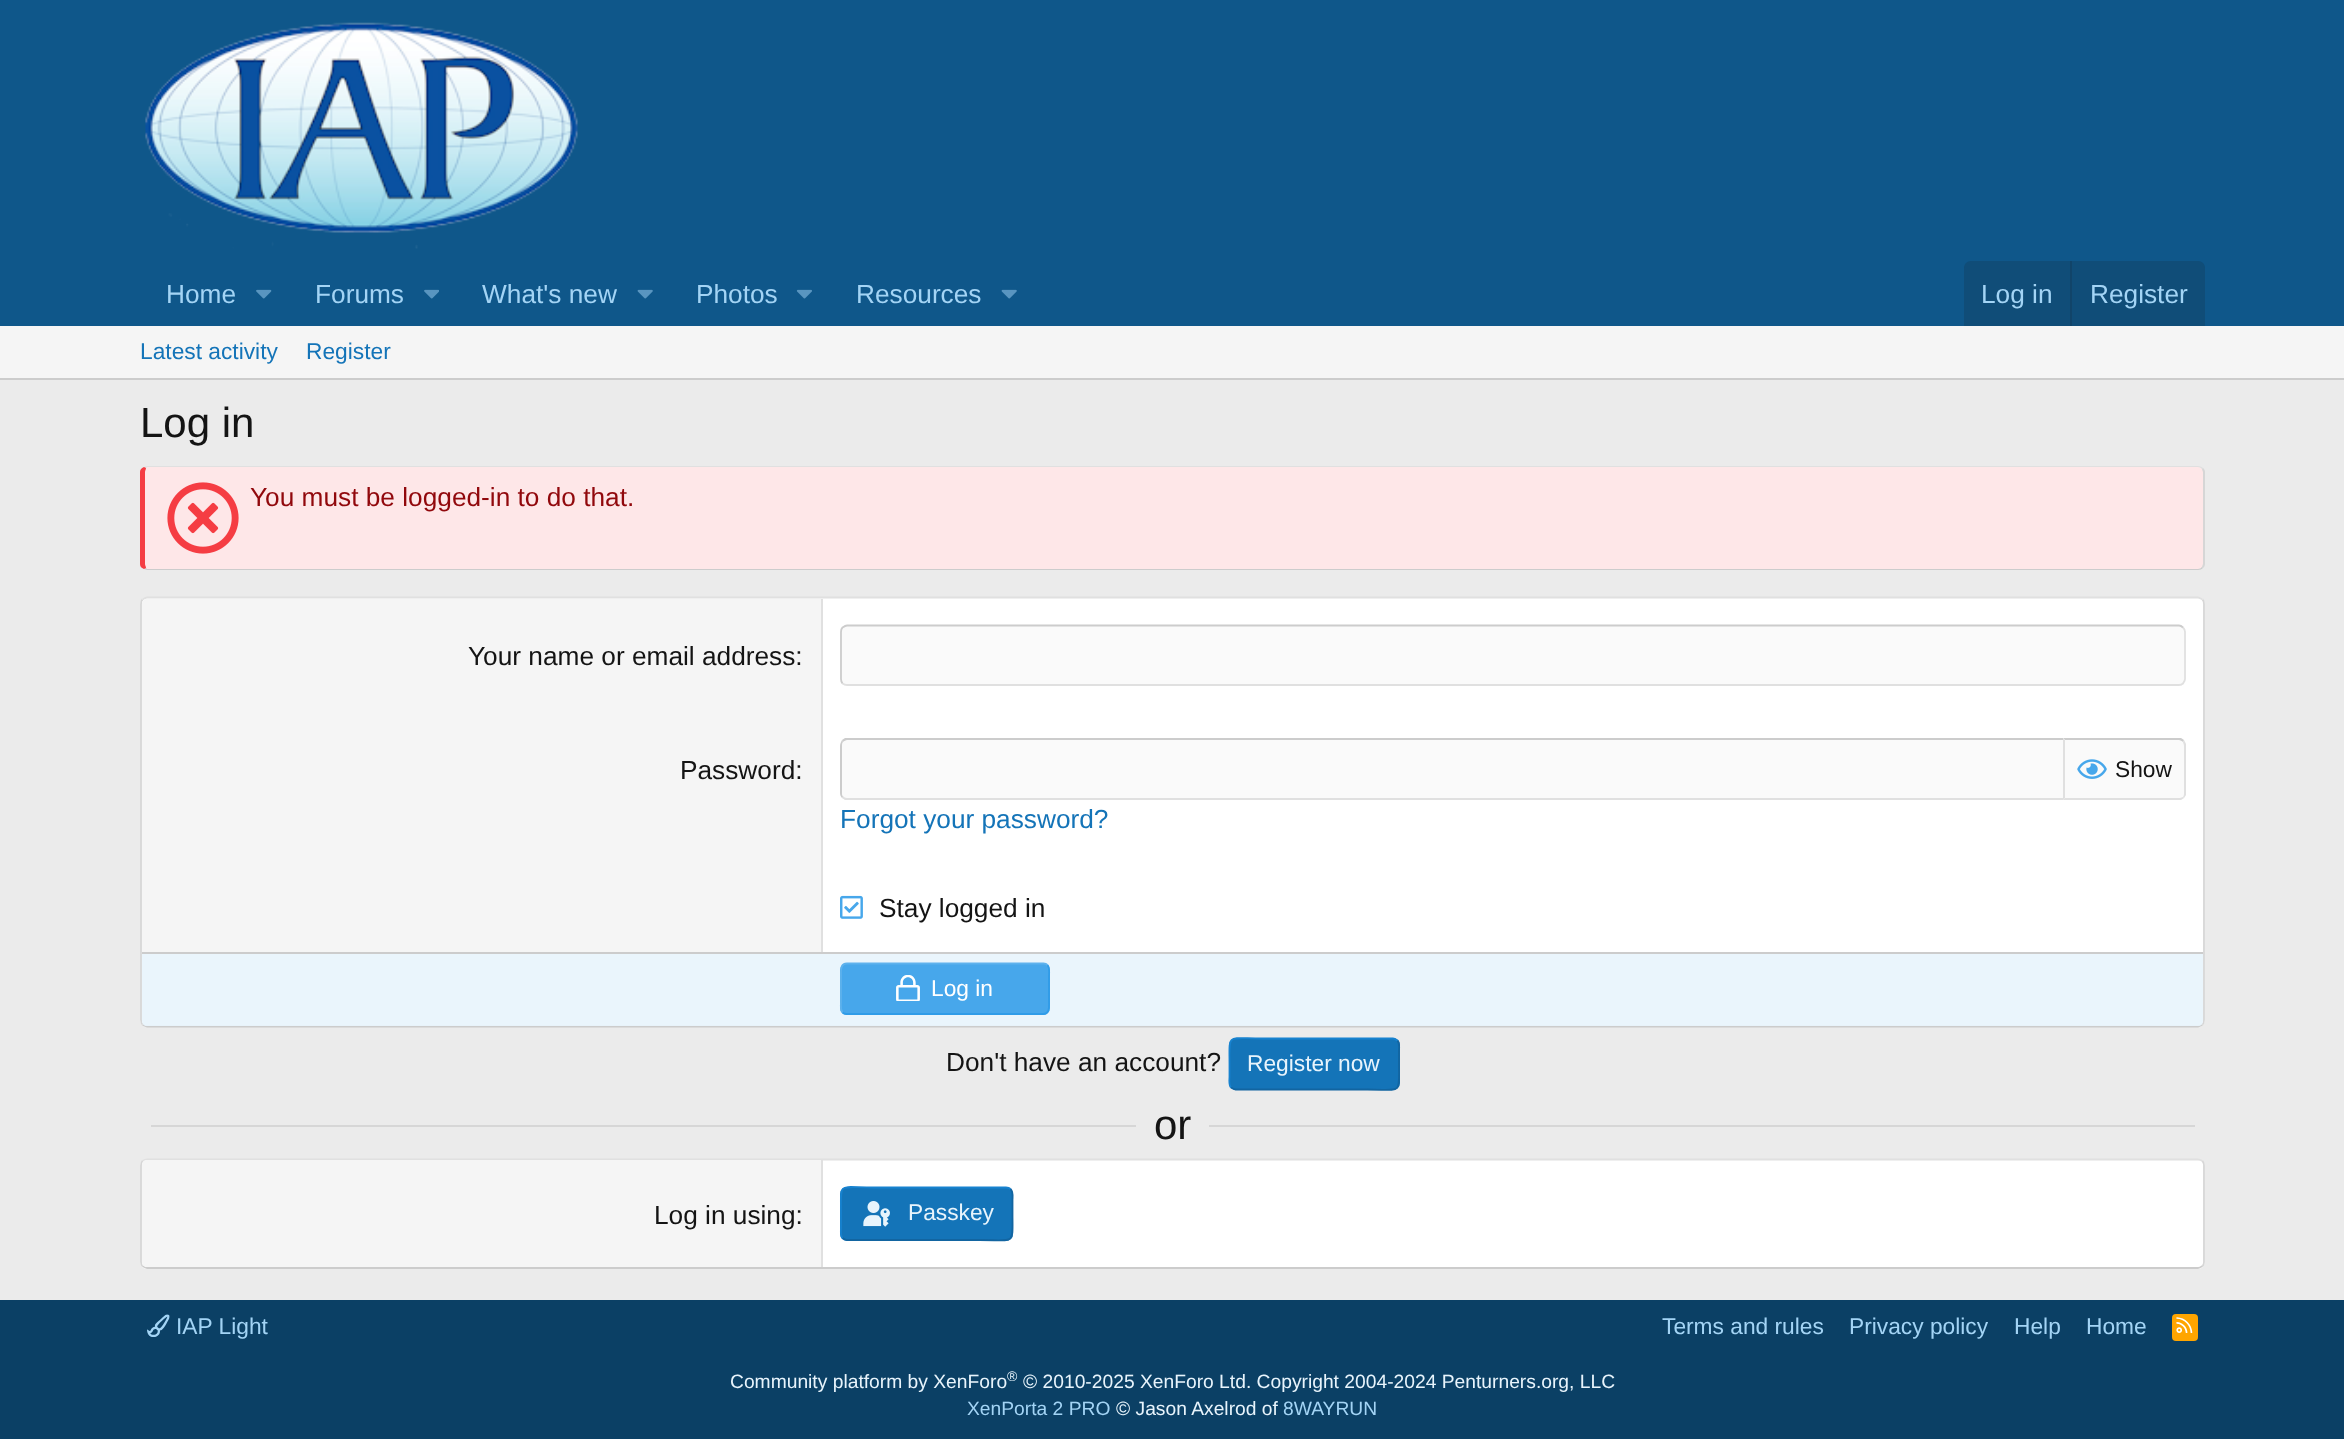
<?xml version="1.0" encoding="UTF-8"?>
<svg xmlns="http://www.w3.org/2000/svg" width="2344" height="1439">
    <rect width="100%" height="100%" fill="#EBEBEB"/>
    <rect x="0" y="0" width="2344" height="326" fill="#0F578A"/>
    <image x="145" y="22" width="433" height="227" href="img_01.png"/>
    <text x="166" y="303" font-family="Liberation Sans" font-size="26.25" fill="#A3D4F5">Home</text>
    <image x="256" y="289" width="16" height="10" href="img_02.png"/>
    <text x="315" y="303" font-family="Liberation Sans" font-size="26.25" fill="#A3D4F5">Forums</text>
    <image x="424" y="289" width="15" height="10" href="img_03.png"/>
    <text x="482" y="303" font-family="Liberation Sans" font-size="26.25" fill="#A3D4F5">What's new</text>
    <image x="637" y="289" width="16" height="10" href="img_04.png"/>
    <text x="696" y="303" font-family="Liberation Sans" font-size="26.25" fill="#A3D4F5">Photos</text>
    <image x="796" y="289" width="16" height="10" href="img_05.png"/>
    <text x="856" y="303" font-family="Liberation Sans" font-size="26.25" fill="#A3D4F5">Resources</text>
    <image x="1001" y="289" width="16" height="10" href="img_04.png"/>
    <path d="M 1971 261 H 2198 C 2202 261 2205 264 2205 268 V 326 H 1964 V 268 C 1964 264 1967 261 1971 261 Z" fill="#104D78"/>
    <text x="1981" y="303" font-family="Liberation Sans" font-size="26.25" fill="#A3D4F5">Log in</text>
    <rect x="2070" y="261" width="2" height="65" fill="#114469"/>
    <text x="2090" y="303" font-family="Liberation Sans" font-size="26.25" fill="#A3D4F5">Register</text>
    <rect x="0" y="326" width="2344" height="52" fill="#F5F5F5"/>
    <rect x="0" y="378" width="2344" height="2" fill="#CCCCCC"/>
    <text x="140" y="359" font-family="Liberation Sans" font-size="22.75" fill="#1474B8">Latest activity</text>
    <text x="306" y="359" font-family="Liberation Sans" font-size="22.75" fill="#1474B8">Register</text>
    <text x="140" y="437" font-family="Liberation Sans" font-size="42" fill="#141414">Log in</text>
    <path d="M 147 467 H 2198 C 2201 467 2203 470 2203 472 V 564 C 2203 566 2201 569 2198 569 H 147 C 146 569 145 566 145 564 V 472 C 145 470 146 467 147 467 Z" fill="#FEE7E8"/>
    <path d="M 147 466 L 144 467 L 146 468 L 147 467 H 2198 C 2200 467 2201 468 2202 469 L 2203 468 C 2202 467 2200 466 2198 466 Z" fill="#E0E0E0"/>
    <path d="M 2203 468 C 2204 469 2205 470 2205 472 V 564 C 2205 566 2204 567 2203 568 L 2202 567 L 2203 564 V 472 L 2202 469 Z" fill="#D6D6D6"/>
    <path d="M 2203 568 C 2202 569 2200 570 2198 570 H 147 L 144 569 L 146 568 L 147 569 H 2198 C 2200 569 2201 568 2202 567 Z" fill="#CCCCCC"/>
    <path d="M 140 472 V 564 C 140 566 141 568 144 569 L 146 568 C 146 567 145 565 145 564 V 472 C 145 471 146 469 146 468 L 144 467 C 141 468 140 470 140 472 Z" fill="#F53D43"/>
    <image x="167" y="482" width="72" height="72" href="img_06.png"/>
    <text x="250" y="506" font-family="Liberation Sans" font-size="26.25" fill="#91080C">You must be logged-in to do that.</text>
    <rect x="140" y="597" width="2065" height="430" rx="7" fill="#FFFFFF"/>
    <path d="M 142.5 599.5 C 144 598.5 145.5 597.5 147 597.5 H 2198 C 2199.5 597.5 2201 598.5 2202.5 599.5" fill="none" stroke="#E0E0E0" stroke-width="1.8"/>
    <path d="M 2202.5 599.5 C 2203.5 600.5 2204 602 2204 604 V 1020 C 2204 1022 2203.5 1023.5 2202.5 1024.5" fill="none" stroke="#D6D6D6" stroke-width="1.8"/>
    <path d="M 2202.5 1024.5 C 2201 1025.5 2199.5 1026.5 2198 1026.5 H 147 C 145.5 1026.5 144 1025.5 142.5 1024.5" fill="none" stroke="#CCCCCC" stroke-width="1.8"/>
    <path d="M 142.5 1024.5 C 141.5 1023.5 141 1022 141 1020 V 604 C 141 602 141.5 600.5 142.5 599.5" fill="none" stroke="#D6D6D6" stroke-width="1.8"/>
    <path d="M 147 599 H 823 V 712 H 142 V 604 C 142 601 144 599 147 599 Z" fill="#F5F5F5"/>
    <rect x="821" y="599" width="2" height="353" fill="#E0E0E0"/>
    <text x="468" y="665" font-family="Liberation Sans" font-size="26.25" fill="#141414">Your name or email address:</text>
    <rect x="840" y="625" width="1346" height="61" rx="7" fill="#FAFAFA"/>
    <path d="M 2183 627.5 C 2184 628.5 2185 630 2185 632 V 679 C 2185 680.5 2184 682 2183 683.5 C 2182 684.5 2180.5 685 2179 685 H 847 C 845.5 685 844 684.5 842.5 683.5" fill="none" stroke="#E0E0E0" stroke-width="1.8"/>
    <path d="M 842.5 683.5 C 841.5 682 841 680.5 841 679 V 632 C 841 630 841.5 628.5 842.5 627.5 C 844 626.5 845.5 625.5 847 625.5 H 2179 C 2180.5 625.5 2182 626.5 2183 627.5" fill="none" stroke="#CCCCCC" stroke-width="1.8"/>
    <rect x="142" y="712" width="679" height="240" fill="#F5F5F5"/>
    <text x="680" y="779" font-family="Liberation Sans" font-size="26.25" fill="#141414">Password:</text>
    <path d="M 847 739 H 2063 V 800 H 847 C 843 800 840 797 840 793 V 746 C 840 742 843 739 847 739 Z" fill="#FAFAFA"/>
    <path d="M 847 740 C 846 740 844 741 843 742 L 842 740 L 845 738 H 2063 V 740 Z" fill="#CCCCCC"/>
    <path d="M 845 800 L 842 798 L 843 796 C 844 797 845 798 847 798 H 2063 V 800 Z" fill="#E0E0E0"/>
    <path d="M 840 746 V 793 C 840 795 841 797 842 798 L 843 796 C 842 796 842 794 842 793 V 746 C 842 744 842 743 843 742 L 842 740 C 841 742 840 744 840 746 Z" fill="#CCCCCC"/>
    <path d="M 2063 739 H 2179 C 2183 739 2186 742 2186 746 V 793 C 2186 797 2183 800 2179 800 H 2063 Z" fill="#FAFAFA"/>
    <path d="M 2065 740 L 2063 738 H 2181 L 2184 740 L 2183 742 C 2182 741 2180 740 2179 740 Z" fill="#CCCCCC"/>
    <path d="M 2186 795 L 2184 798 L 2183 797 C 2184 796 2184 794 2184 793 V 746 C 2184 744 2183 743 2183 742 L 2184 740 L 2186 744 Z" fill="#E0E0E0"/>
    <path d="M 2184 798 L 2181 800 H 2063 L 2065 798 H 2180 L 2183 797 Z" fill="#E0E0E0"/>
    <path d="M 2063 800 L 2065 798 V 740 L 2063 738 Z" fill="#E0E0E0"/>
    <image x="2077" y="759" width="30" height="20" href="img_07.png"/>
    <text x="2115" y="777" font-family="Liberation Sans" font-size="22.75" fill="#141414">Show</text>
    <text x="840" y="828" font-family="Liberation Sans" font-size="26.25" fill="#1474B8">Forgot your password?</text>
    <image x="840" y="895" width="23" height="24" href="img_08.png"/>
    <text x="879" y="917" font-family="Liberation Sans" font-size="26.25" fill="#141414">Stay logged in</text>
    <path d="M 142 952 H 2203 V 1021 C 2203 1024 2201 1026 2198 1026 H 147 C 144 1026 142 1024 142 1021 Z" fill="#E8F4FC" fill-opacity="0.9"/>
    <rect x="142" y="952" width="2061" height="2" fill="#CCCCCC"/>
    <rect x="840" y="963" width="210" height="52" rx="7" fill="#47A7EB"/>
    <path d="M 1047.5 965 C 1050 968 1049 972.5 1049 976 V 1001.5 C 1049 1006.5 1050 1014 1043 1014 H 846.5 C 845 1014 843.5 1013.5 842.5 1012.5" fill="none" stroke="#309CE8" stroke-width="1.8"/>
    <path d="M 842.5 1012.5 C 840 1009.5 841 1005 841 1001.5 V 976 C 841 971 840 963.5 847 963.5 H 1043.5 C 1045 963.5 1046.5 964 1047.5 965" fill="none" stroke="#5EB2ED" stroke-width="1.8"/>
    <image x="896" y="975" width="24" height="26" href="img_09.png"/>
    <text x="931" y="996" font-family="Liberation Sans" font-size="22.75" fill="#FFFFFF">Log in</text>
    <text x="946" y="1071" font-family="Liberation Sans" font-size="26.25" fill="#141414">Don't have an account?</text>
    <rect x="1229" y="1038" width="171" height="52" rx="7" fill="#1474B8"/>
    <path d="M 1397.5 1040.5 C 1400 1043 1399 1048 1399 1051 V 1064 C 1399 1095.5 1402.5 1089.5 1367 1089.5 H 1235.5 C 1234 1089.5 1232.5 1088.5 1231 1087.5" fill="none" stroke="#1265A1" stroke-width="1.8"/>
    <path d="M 1231 1087.5 C 1228.5 1085 1229.5 1080 1229.5 1077 V 1064 C 1229.5 1032.5 1226 1038.5 1262 1038.5 H 1393 C 1394.5 1038.5 1396 1039.5 1397.5 1040.5" fill="none" stroke="#1782CF" stroke-width="1.8"/>
    <text x="1247" y="1071" font-family="Liberation Sans" font-size="22.75" fill="#E8F4FC">Register now</text>
    <rect x="151" y="1125" width="985" height="2" fill="#D6D6D6"/>
    <text x="1154" y="1139" font-family="Liberation Sans" font-size="42" fill="#141414">or</text>
    <rect x="1209" y="1125" width="986" height="2" fill="#D6D6D6"/>
    <rect x="140" y="1159" width="2065" height="110" rx="7" fill="#FFFFFF"/>
    <path d="M 142.5 1161 C 144 1160 145.5 1159.5 147 1159.5 H 2198 C 2199.5 1159.5 2201 1160 2202.5 1161" fill="none" stroke="#E0E0E0" stroke-width="1.8"/>
    <path d="M 2202.5 1161 C 2203.5 1162.5 2204 1164 2204 1165.5 V 1262 C 2204 1263.5 2203.5 1265 2202.5 1266" fill="none" stroke="#D6D6D6" stroke-width="1.8"/>
    <path d="M 2202.5 1266 C 2201 1267 2199.5 1268 2198 1268 H 147 C 145.5 1268 144 1267 142.5 1266" fill="none" stroke="#CCCCCC" stroke-width="1.8"/>
    <path d="M 142.5 1266 C 141.5 1265 141 1263.5 141 1262 V 1165.5 C 141 1164 141.5 1162.5 142.5 1161" fill="none" stroke="#D6D6D6" stroke-width="1.8"/>
    <path d="M 147 1160 H 823 V 1267 H 147 C 144 1267 142 1265 142 1262 V 1165 C 142 1162 144 1160 147 1160 Z" fill="#F5F5F5"/>
    <rect x="821" y="1160" width="2" height="107" fill="#E0E0E0"/>
    <text x="654" y="1224" font-family="Liberation Sans" font-size="26.25" fill="#141414">Log in using:</text>
    <rect x="840" y="1187" width="173" height="54" rx="7" fill="#1474B8"/>
    <path d="M 1010.5 1189 C 1013.5 1192 1012.5 1197 1012.5 1200 V 1213.5 C 1012.5 1246 1016 1240 979.5 1240 H 847 C 845.5 1240 844 1239 842.5 1238" fill="none" stroke="#1265A1" stroke-width="1.8"/>
    <path d="M 842.5 1238 C 840 1235.5 841 1230.5 841 1227 V 1213.5 C 841 1181 837 1187.5 873.5 1187.5 H 1006 C 1008 1187.5 1009.5 1188 1010.5 1189" fill="none" stroke="#1782CF" stroke-width="1.8"/>
    <image x="863" y="1201" width="27" height="26" href="img_10.png"/>
    <text x="908" y="1220" font-family="Liberation Sans" font-size="22.75" fill="#E8F4FC">Passkey</text>
    <rect x="0" y="1300" width="2344" height="139" fill="#0B4065"/>
    <image x="147" y="1314" width="23" height="23" href="img_11.png"/>
    <text x="176" y="1334" font-family="Liberation Sans" font-size="22.75" fill="#A3D4F5">IAP Light</text>
    <text x="1662" y="1334" font-family="Liberation Sans" font-size="22.75" fill="#A3D4F5">Terms and rules</text>
    <text x="1849" y="1334" font-family="Liberation Sans" font-size="22.75" fill="#A3D4F5">Privacy policy</text>
    <text x="2014" y="1334" font-family="Liberation Sans" font-size="22.75" fill="#A3D4F5">Help</text>
    <text x="2086" y="1334" font-family="Liberation Sans" font-size="22.75" fill="#A3D4F5">Home</text>
    <rect x="2172" y="1314" width="26" height="27" rx="4" fill="#FFA500"/>
    <image x="2176" y="1317" width="17" height="16" href="img_12.png"/>
    <text x="730" y="1388" font-family="Liberation Sans" font-size="19.25" fill="#E8F4FC">Community platform by XenForo</text>
    <text x="1007" y="1381" font-family="Liberation Sans" font-size="14" fill="#E8F4FC">®</text>
    <text x="1023" y="1388" font-family="Liberation Sans" font-size="19.25" fill="#E8F4FC">© 2010-2025 XenForo Ltd. Copyright 2004-2024 Penturners.org, LLC</text>
    <text x="967" y="1415" font-family="Liberation Sans" font-size="19.25" fill="#A3D4F5">XenPorta 2 PRO</text>
    <text x="1116" y="1415" font-family="Liberation Sans" font-size="19.25" fill="#E8F4FC">© Jason Axelrod of</text>
    <text x="1283" y="1415" font-family="Liberation Sans" font-size="19.25" fill="#A3D4F5">8WAYRUN</text>
</svg>
